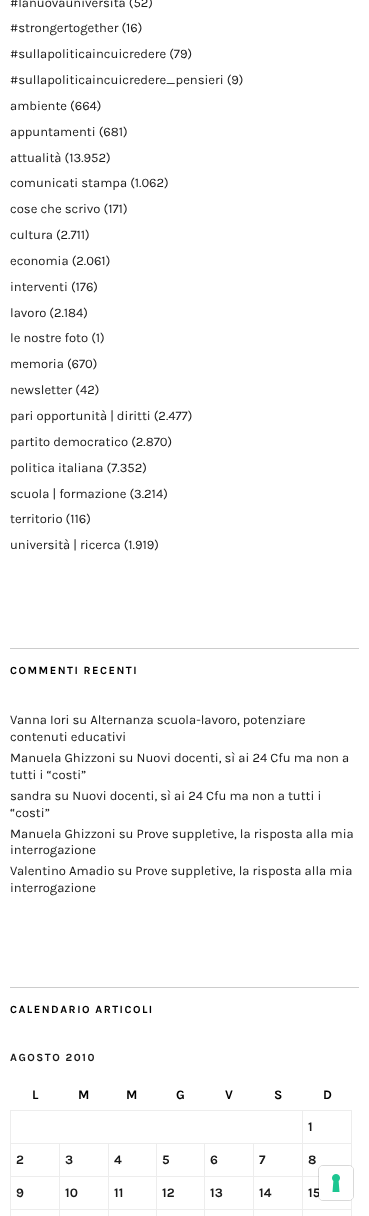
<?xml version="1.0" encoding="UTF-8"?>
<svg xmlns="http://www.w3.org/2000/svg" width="369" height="1216">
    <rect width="100%" height="100%" fill="#FFFFFF"/>
    <rect x="10" y="648" width="349" height="1" fill="#CCCCCC"/>
    <text font-family="Karla" font-size="13" fill="#191919">
        <tspan x="10" y="7">#lanuovauniversità (52)</tspan>
        <tspan x="10" y="32">#strongertogether (16)</tspan>
    </text>
    <text x="10" y="58" font-family="Karla" font-size="13" fill="#191919">#sullapoliticaincuicredere (79)</text>
    <text x="10" y="84" font-family="Karla" font-size="13" fill="#191919">#sullapoliticaincuicredere_pensieri (9)</text>
    <text x="10" y="110" font-family="Karla" font-size="13" fill="#191919">ambiente (664)</text>
    <text x="10" y="136" font-family="Karla" font-size="13" fill="#191919">appuntamenti (681)</text>
    <text font-family="Karla" font-size="13" fill="#191919">
        <tspan x="10" y="162">attualità (13.952)</tspan>
        <tspan x="10" y="187">comunicati stampa (1.062)</tspan>
    </text>
    <text x="10" y="213" font-family="Karla" font-size="13" fill="#191919">cose che scrivo (171)</text>
    <text x="10" y="239" font-family="Karla" font-size="13" fill="#191919">cultura (2.711)</text>
    <text x="10" y="265" font-family="Karla" font-size="13" fill="#191919">economia (2.061)</text>
    <text x="10" y="291" font-family="Karla" font-size="13" fill="#191919">interventi (176)</text>
    <text font-family="Karla" font-size="13" fill="#191919">
        <tspan x="10" y="317">lavoro (2.184)</tspan>
        <tspan x="10" y="342">le nostre foto (1)</tspan>
    </text>
    <text x="10" y="368" font-family="Karla" font-size="13" fill="#191919">memoria (670)</text>
    <text x="10" y="394" font-family="Karla" font-size="13" fill="#191919">newsletter (42)</text>
    <text x="10" y="420" font-family="Karla" font-size="13" fill="#191919">pari opportunità | diritti (2.477)</text>
    <text x="10" y="446" font-family="Karla" font-size="13" fill="#191919">partito democratico (2.870)</text>
    <text x="10" y="472" font-family="Karla" font-size="13" fill="#191919">politica italiana (7.352)</text>
    <text font-family="Karla" font-size="13" fill="#191919">
        <tspan x="10" y="498">scuola | formazione (3.214)</tspan>
        <tspan x="10" y="523">territorio (116)</tspan>
    </text>
    <text x="10" y="549" font-family="Karla" font-size="13" fill="#191919">università | ricerca (1.919)</text>
    <rect x="10" y="987" width="349" height="1" fill="#CCCCCC"/>
    <text x="10" y="674" font-family="Karla" font-size="11" font-weight="700" letter-spacing="1.5" fill="#000000">COMMENTI RECENTI</text>
    <text font-family="Karla" font-size="13" fill="#191919">
        <tspan x="10" y="724">Vanna Iori su Alternanza scuola-lavoro, potenziare</tspan>
        <tspan x="10" y="741">contenuti educativi</tspan>
        <tspan x="10" y="762">Manuela Ghizzoni su Nuovi docenti, sì ai 24 Cfu ma non a</tspan>
        <tspan x="10" y="779">tutti i “costi”</tspan>
        <tspan x="10" y="800">sandra su Nuovi docenti, sì ai 24 Cfu ma non a tutti i</tspan>
        <tspan x="10" y="817">“costi”</tspan>
        <tspan x="10" y="838">Manuela Ghizzoni su Prove suppletive, la risposta alla mia</tspan>
        <tspan x="10" y="854">interrogazione</tspan>
        <tspan x="10" y="875">Valentino Amadio su Prove suppletive, la risposta alla mia</tspan>
        <tspan x="10" y="892">interrogazione</tspan>
    </text>
    <text x="10" y="1013" font-family="Karla" font-size="11" font-weight="700" letter-spacing="1.5" fill="#000000">CALENDARIO ARTICOLI</text>
    <text x="10" y="1061" font-family="Karla" font-size="11" font-weight="700" letter-spacing="1.5" fill="#191919">AGOSTO 2010</text>
    <text x="32" y="1099" font-family="Karla" font-size="13" font-weight="700" fill="#000000">L</text>
    <text x="78" y="1099" font-family="Karla" font-size="13" font-weight="700" fill="#000000">M</text>
    <text x="126" y="1099" font-family="Karla" font-size="13" font-weight="700" fill="#000000">M</text>
    <text x="176" y="1099" font-family="Karla" font-size="13" font-weight="700" fill="#000000">G</text>
    <text x="225" y="1099" font-family="Karla" font-size="13" font-weight="700" fill="#000000">V</text>
    <text x="274" y="1099" font-family="Karla" font-size="13" font-weight="700" fill="#000000">S</text>
    <text x="323" y="1099" font-family="Karla" font-size="13" font-weight="700" fill="#000000">D</text>
    <rect x="302" y="1110" width="50" height="1" fill="#EDEDED"/>
    <rect x="302" y="1143" width="50" height="1" fill="#EDEDED"/>
    <rect x="302" y="1176" width="17" height="1" fill="#EDEDED"/>
    <rect x="302" y="1209" width="50" height="1" fill="#EDEDED"/>
    <rect x="302" y="1209" width="1" height="7" fill="#EDEDED"/>
    <rect x="253" y="1209" width="50" height="1" fill="#EDEDED"/>
    <rect x="302" y="1176" width="1" height="34" fill="#EDEDED"/>
    <rect x="253" y="1176" width="50" height="1" fill="#EDEDED"/>
    <rect x="302" y="1143" width="1" height="34" fill="#EDEDED"/>
    <rect x="253" y="1143" width="50" height="1" fill="#EDEDED"/>
    <rect x="302" y="1110" width="1" height="34" fill="#EDEDED"/>
    <rect x="10" y="1110" width="293" height="1" fill="#EDEDED"/>
    <rect x="253" y="1209" width="1" height="7" fill="#EDEDED"/>
    <rect x="204" y="1209" width="50" height="1" fill="#EDEDED"/>
    <rect x="253" y="1176" width="1" height="34" fill="#EDEDED"/>
    <rect x="204" y="1176" width="50" height="1" fill="#EDEDED"/>
    <rect x="253" y="1143" width="1" height="34" fill="#EDEDED"/>
    <rect x="204" y="1143" width="50" height="1" fill="#EDEDED"/>
    <rect x="204" y="1209" width="1" height="7" fill="#EDEDED"/>
    <rect x="156" y="1209" width="49" height="1" fill="#EDEDED"/>
    <rect x="204" y="1176" width="1" height="34" fill="#EDEDED"/>
    <rect x="156" y="1176" width="49" height="1" fill="#EDEDED"/>
    <rect x="204" y="1143" width="1" height="34" fill="#EDEDED"/>
    <rect x="156" y="1143" width="49" height="1" fill="#EDEDED"/>
    <rect x="156" y="1209" width="1" height="7" fill="#EDEDED"/>
    <rect x="108" y="1209" width="49" height="1" fill="#EDEDED"/>
    <rect x="156" y="1176" width="1" height="34" fill="#EDEDED"/>
    <rect x="108" y="1176" width="49" height="1" fill="#EDEDED"/>
    <rect x="156" y="1143" width="1" height="34" fill="#EDEDED"/>
    <rect x="108" y="1143" width="49" height="1" fill="#EDEDED"/>
    <rect x="108" y="1209" width="1" height="7" fill="#EDEDED"/>
    <rect x="59" y="1209" width="50" height="1" fill="#EDEDED"/>
    <rect x="108" y="1176" width="1" height="34" fill="#EDEDED"/>
    <rect x="59" y="1176" width="50" height="1" fill="#EDEDED"/>
    <rect x="108" y="1143" width="1" height="34" fill="#EDEDED"/>
    <rect x="59" y="1143" width="50" height="1" fill="#EDEDED"/>
    <rect x="59" y="1209" width="1" height="7" fill="#EDEDED"/>
    <rect x="10" y="1209" width="50" height="1" fill="#EDEDED"/>
    <rect x="59" y="1176" width="1" height="34" fill="#EDEDED"/>
    <rect x="10" y="1176" width="50" height="1" fill="#EDEDED"/>
    <rect x="59" y="1143" width="1" height="34" fill="#EDEDED"/>
    <rect x="10" y="1143" width="50" height="1" fill="#EDEDED"/>
    <rect x="10" y="1209" width="1" height="7" fill="#EDEDED"/>
    <rect x="10" y="1176" width="1" height="34" fill="#EDEDED"/>
    <rect x="10" y="1143" width="1" height="34" fill="#EDEDED"/>
    <rect x="10" y="1110" width="1" height="34" fill="#EDEDED"/>
    <rect x="351" y="1143" width="1" height="25" fill="#EDEDED"/>
    <rect x="351" y="1110" width="1" height="34" fill="#EDEDED"/>
    <text x="308" y="1131" font-family="Karla" font-size="13" font-weight="700" fill="#191919">1</text>
    <text x="16" y="1164" font-family="Karla" font-size="13" font-weight="700" fill="#191919">2</text>
    <text x="65" y="1164" font-family="Karla" font-size="13" font-weight="700" fill="#191919">3</text>
    <text x="114" y="1164" font-family="Karla" font-size="13" font-weight="700" fill="#191919">4</text>
    <text x="162" y="1164" font-family="Karla" font-size="13" font-weight="700" fill="#191919">5</text>
    <text x="210" y="1164" font-family="Karla" font-size="13" font-weight="700" fill="#191919">6</text>
    <text x="259" y="1164" font-family="Karla" font-size="13" font-weight="700" fill="#191919">7</text>
    <text x="308" y="1164" font-family="Karla" font-size="13" font-weight="700" fill="#191919">8</text>
    <text x="16" y="1197" font-family="Karla" font-size="13" font-weight="700" fill="#191919">9</text>
    <text x="65" y="1197" font-family="Karla" font-size="13" font-weight="700" fill="#191919">10</text>
    <text x="114" y="1197" font-family="Karla" font-size="13" font-weight="700" fill="#191919">11</text>
    <text x="162" y="1197" font-family="Karla" font-size="13" font-weight="700" fill="#191919">12</text>
    <text x="210" y="1197" font-family="Karla" font-size="13" font-weight="700" fill="#191919">13</text>
    <text x="259" y="1197" font-family="Karla" font-size="13" font-weight="700" fill="#191919">14</text>
    <text x="308" y="1197" font-family="Karla" font-size="13" font-weight="700" fill="#191919">15</text>
    <rect x="351" y="1198" width="1" height="18" fill="#EDEDED"/>
    <rect x="318.5" y="1165.5" width="35" height="35" rx="4.5" fill="none" stroke="#000000" stroke-opacity="0.15"/>
    <rect x="319" y="1166" width="34" height="34" rx="4" fill="#FFFFFF"/>
    <image x="332" y="1174" width="8" height="18" href="img_01.png"/>
</svg>
